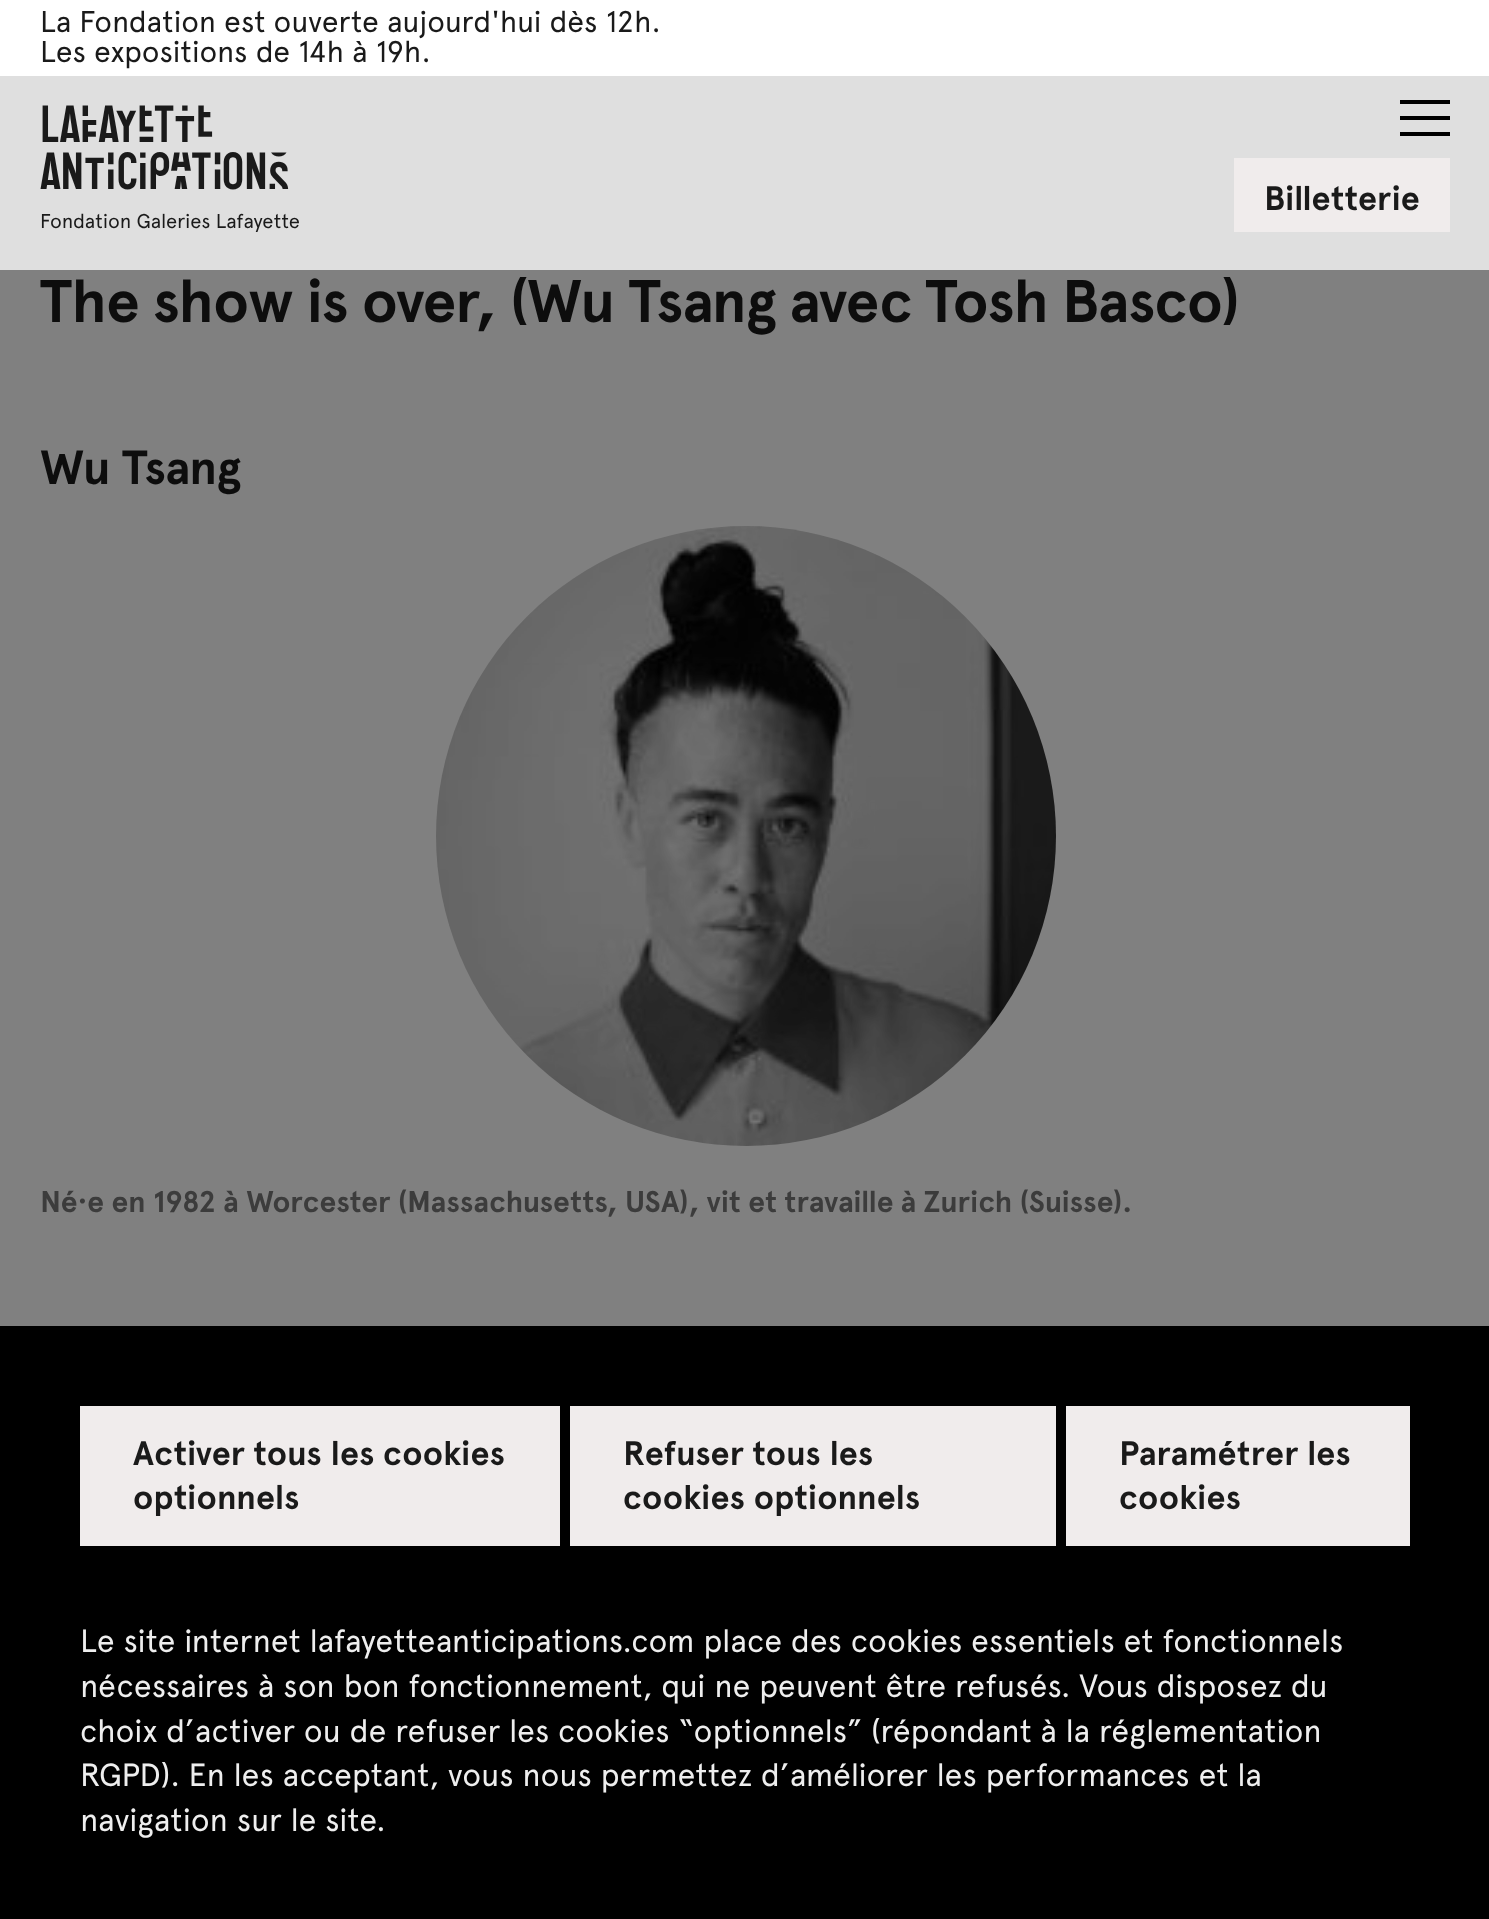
<?xml version="1.0" encoding="UTF-8"?>
<svg xmlns="http://www.w3.org/2000/svg" width="1489" height="1919">
    <rect width="100%" height="100%" fill="#808080"/>
    <rect x="0" y="76" width="1489" height="194" fill="#DFDFDF"/>
    <rect x="0" y="0" width="1489" height="76" fill="#FFFFFF"/>
    <text font-family="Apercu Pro" font-size="30" fill="#1A1A1A">
        <tspan x="40" y="32">La Fondation est ouverte aujourd'hui dès 12h.</tspan>
        <tspan x="40" y="62">Les expositions de 14h à 19h.</tspan>
    </text>
    <text font-family="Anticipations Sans" font-size="52" fill="#1A1A1A">
        <tspan x="40" y="142">Lafayette</tspan>
        <tspan x="40" y="189">Anticipations</tspan>
    </text>
    <text x="40" y="228" font-family="Apercu Pro" font-size="20" fill="#1A1A1A">Fondation Galeries Lafayette</text>
    <rect x="1400" y="100" width="50" height="4" fill="#000000"/>
    <rect x="1400" y="116" width="50" height="4" fill="#000000"/>
    <rect x="1400" y="132" width="50" height="4" fill="#000000"/>
    <rect x="1234" y="158" width="216" height="74" fill="#F0ECEC"/>
    <text x="1264" y="210" font-family="Apercu Pro" font-size="34" font-weight="700" fill="#1A1A1A">Billetterie</text>
    <text x="40" y="322" font-family="Apercu Pro" font-size="60" font-weight="700" letter-spacing="-0.9" fill="#0D0D0D">The show is over, (Wu Tsang avec Tosh Basco)</text>
    <text x="40" y="484" font-family="Apercu Pro" font-size="48" font-weight="700" letter-spacing="-0.5" fill="#0D0D0D">Wu Tsang</text>
    <image x="436" y="526" width="620" height="620" href="img_01.png"/>
    <text x="40" y="1212" font-family="Apercu Pro" font-size="30" font-weight="700" fill="#3C3C3C">Né·e en 1982 à Worcester (Massachusetts, USA), vit et travaille à Zurich (Suisse).</text>
    <rect x="0" y="1326" width="1489" height="593" fill="#000000"/>
    <rect x="80" y="1406" width="480" height="140" fill="#F0ECEC"/>
    <text font-family="Apercu Pro" font-size="34" font-weight="700" letter-spacing="0.1" fill="#1A1A1A">
        <tspan x="133" y="1465">Activer tous les cookies</tspan>
        <tspan x="133" y="1509">optionnels</tspan>
    </text>
    <rect x="570" y="1406" width="486" height="140" fill="#F0ECEC"/>
    <text font-family="Apercu Pro" font-size="34" font-weight="700" letter-spacing="0.1" fill="#1A1A1A">
        <tspan x="623" y="1465">Refuser tous les</tspan>
        <tspan x="623" y="1509">cookies optionnels</tspan>
    </text>
    <rect x="1066" y="1406" width="344" height="140" fill="#F0ECEC"/>
    <text font-family="Apercu Pro" font-size="34" font-weight="700" letter-spacing="0.1" fill="#1A1A1A">
        <tspan x="1119" y="1465">Paramétrer les</tspan>
        <tspan x="1119" y="1509">cookies</tspan>
    </text>
    <text font-family="Apercu Pro" font-size="32" fill="#EEEEEE">
        <tspan x="80" y="1652">Le site internet lafayetteanticipations.com place des cookies essentiels et fonctionnels</tspan>
        <tspan x="80" y="1697">nécessaires à son bon fonctionnement, qui ne peuvent être refusés. Vous disposez du</tspan>
        <tspan x="80" y="1742">choix d’activer ou de refuser les cookies “optionnels” (répondant à la réglementation</tspan>
        <tspan x="80" y="1786">RGPD). En les acceptant, vous nous permettez d’améliorer les performances et la</tspan>
        <tspan x="80" y="1831">navigation sur le site.</tspan>
    </text>
</svg>
